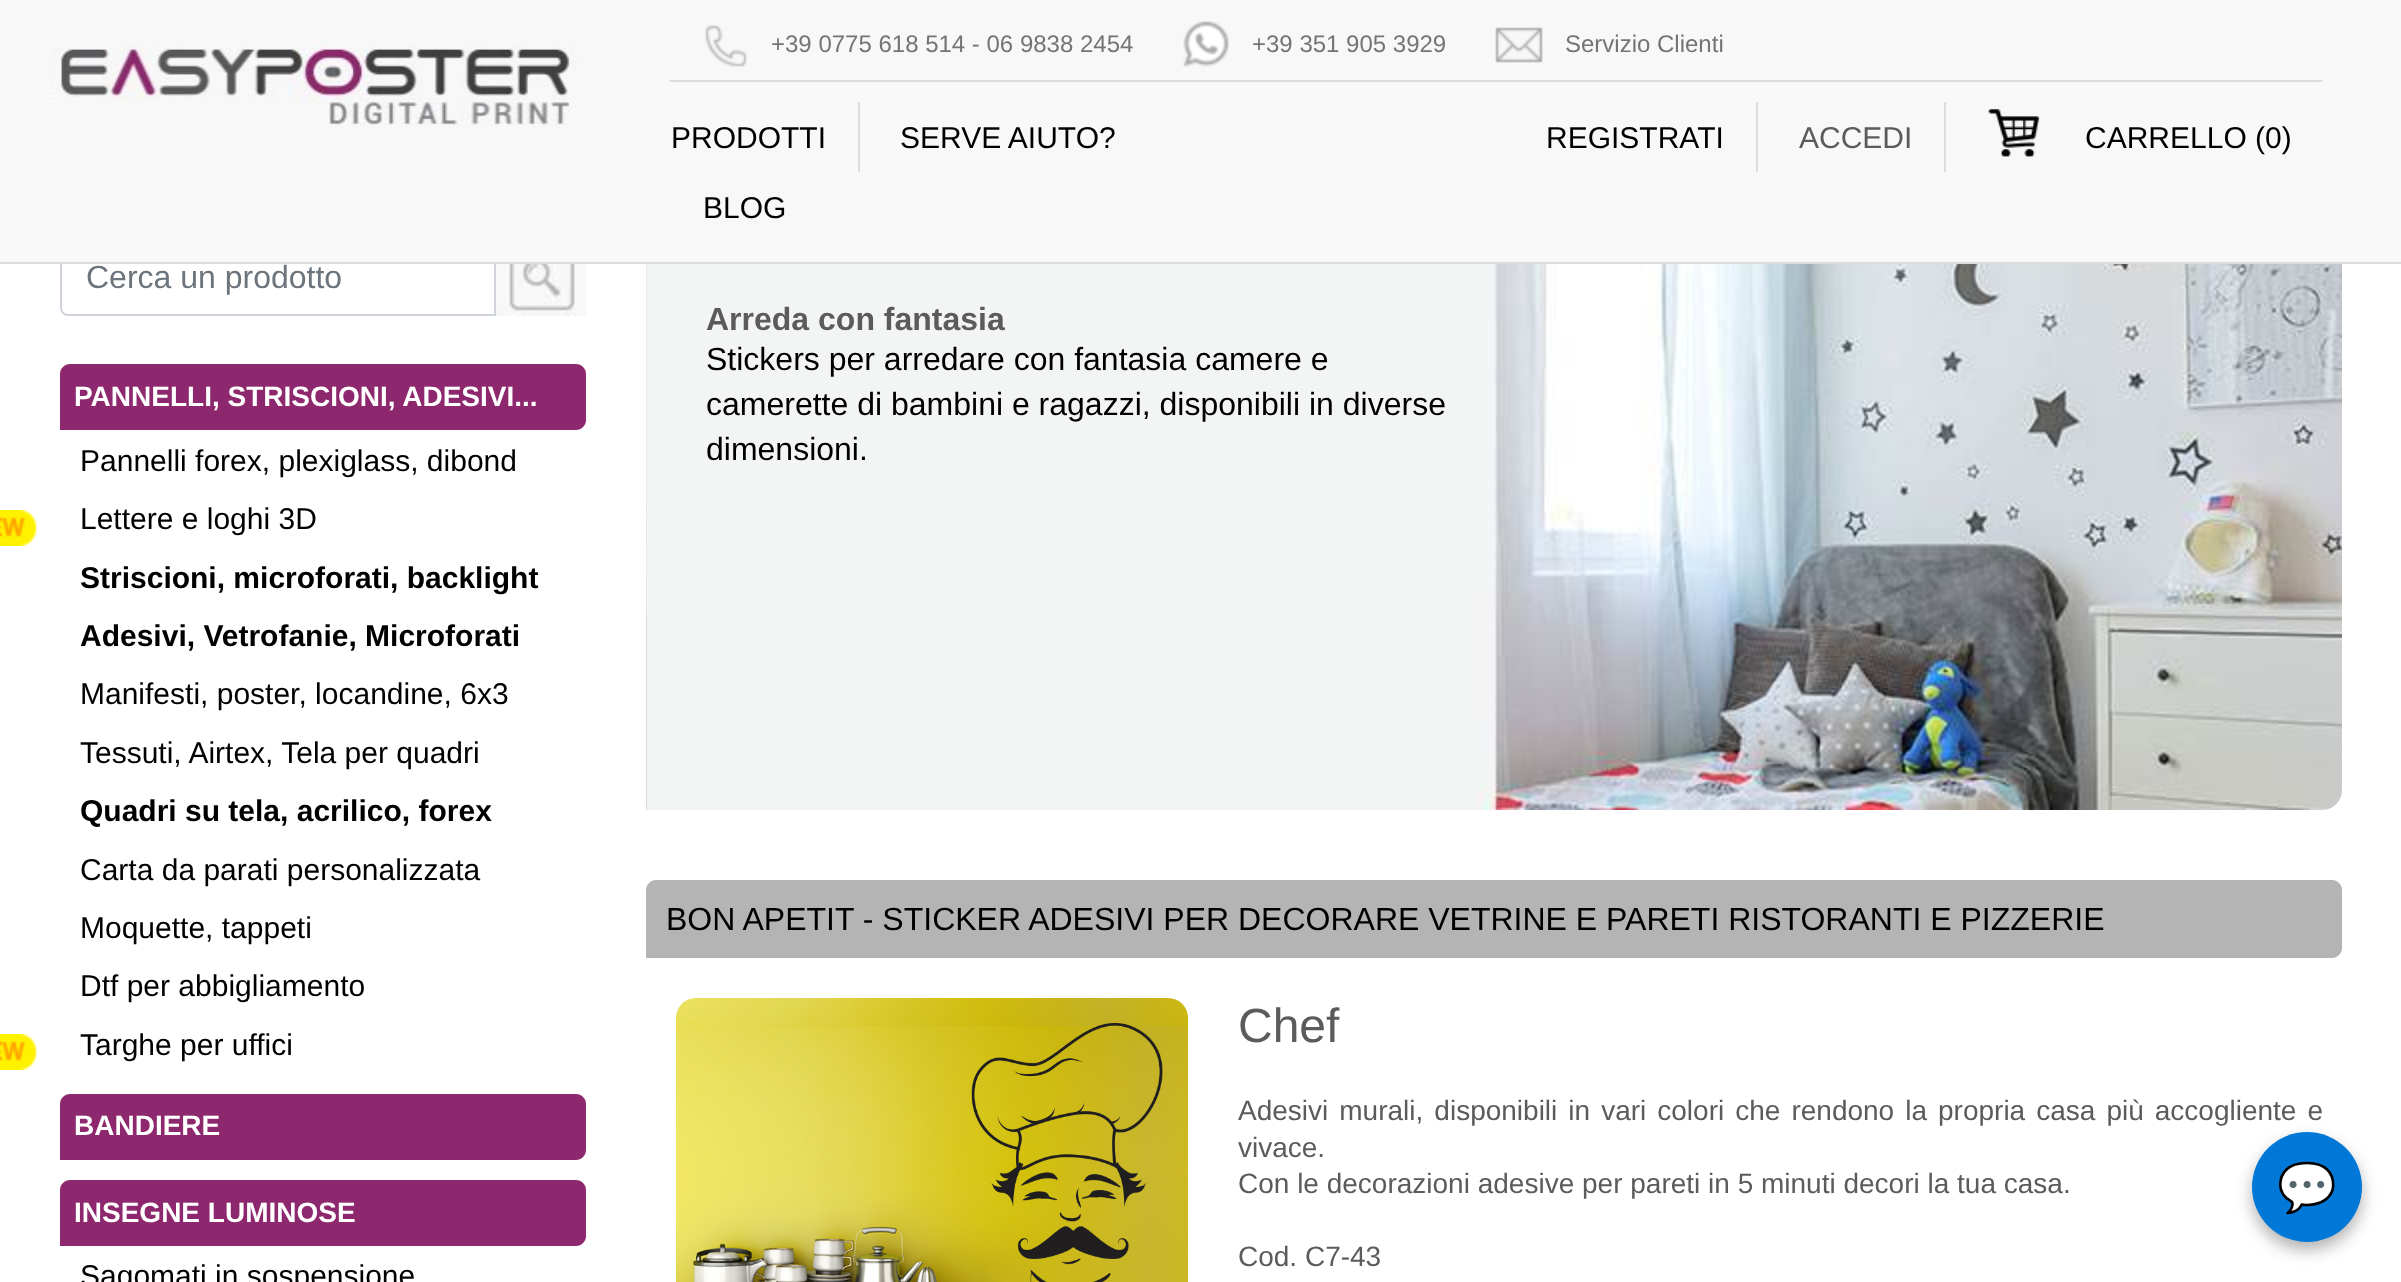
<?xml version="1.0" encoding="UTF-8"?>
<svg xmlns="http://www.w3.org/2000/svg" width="2401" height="1282">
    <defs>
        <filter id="blur1" x="-50%" y="-200%" width="200%" height="500%"><feGaussianBlur stdDeviation="8"/></filter>
    </defs>
    <rect width="100%" height="100%" fill="#FFFFFF"/>
    <path d="M 68 241 H 495 V 315 H 68 C 64 315 61 312 61 308 V 248 C 61 244 64 241 68 241 Z" fill="none" stroke="#CED4DA" stroke-width="2"/>
    <rect x="0" y="0" width="2401" height="262" fill="#F8F8F8"/>
    <rect x="0" y="262" width="2401" height="2" fill="#DCDCDC"/>
    <image x="50" y="46" width="527" height="80" href="img_01.png"/>
    <rect x="670" y="80" width="1652" height="2" fill="#DCDCDC"/>
    <image x="705" y="25" width="42" height="42" href="img_02.png"/>
    <text x="771" y="52" font-family="Liberation Sans" font-size="24" fill="#747474">+39 0775 618 514 - 06 9838 2454</text>
    <image x="1183" y="21" width="46" height="46" href="img_03.png"/>
    <text x="1252" y="52" font-family="Liberation Sans" font-size="24" fill="#747474">+39 351 905 3929</text>
    <image x="1495" y="27" width="48" height="36" href="img_04.png"/>
    <text x="1565" y="52" font-family="Liberation Sans" font-size="24" fill="#747474">Servizio Clienti</text>
    <rect x="858" y="102" width="2" height="70" fill="#DCDCDC"/>
    <text x="671" y="148" font-family="Liberation Sans" font-size="30" fill="#000000">PRODOTTI</text>
    <text x="900" y="148" font-family="Liberation Sans" font-size="30" fill="#000000">SERVE AIUTO?</text>
    <text x="703" y="218" font-family="Liberation Sans" font-size="30" fill="#000000">BLOG</text>
    <rect x="1756" y="102" width="2" height="70" fill="#DCDCDC"/>
    <text x="1546" y="148" font-family="Liberation Sans" font-size="30" fill="#000000">REGISTRATI</text>
    <rect x="1944" y="102" width="2" height="70" fill="#DCDCDC"/>
    <text x="1799" y="148" font-family="Liberation Sans" font-size="30" fill="#5B5B5B">ACCEDI</text>
    <image x="1988" y="109" width="52" height="48" href="img_05.png"/>
    <text x="2085" y="148" font-family="Liberation Sans" font-size="30" fill="#000000">CARRELLO (0)</text>
    <text x="86" y="288" font-family="Liberation Sans" font-size="32" fill="#6C757D">Cerca un prodotto</text>
    <image x="496" y="264" width="90" height="52" href="img_06.png"/>
    <path d="M 70 364 H 576 C 581.5 364 586 368.5 586 374 V 420 C 586 425.5 581.5 430 576 430 H 60 V 374 C 60 368.5 64.5 364 70 364 Z" fill="#8E286E"/>
    <text x="74" y="406" font-family="Liberation Sans" font-size="28" font-weight="700" fill="#FFFFFF">PANNELLI, STRISCIONI, ADESIVI...</text>
    <text x="80" y="471" font-family="Liberation Sans" font-size="30" fill="#000000">Pannelli forex, plexiglass, dibond</text>
    <image x="0" y="510" width="37" height="36" href="img_07.png"/>
    <text x="80" y="529" font-family="Liberation Sans" font-size="30" fill="#000000">Lettere e loghi 3D</text>
    <text font-family="Liberation Sans" font-size="30" font-weight="700" fill="#000000">
        <tspan x="80" y="588">Striscioni, microforati, backlight</tspan>
        <tspan x="80" y="646">Adesivi, Vetrofanie, Microforati</tspan>
    </text>
    <text font-family="Liberation Sans" font-size="30" fill="#000000">
        <tspan x="80" y="704">Manifesti, poster, locandine, 6x3</tspan>
        <tspan x="80" y="763">Tessuti, Airtex, Tela per quadri</tspan>
    </text>
    <text x="80" y="821" font-family="Liberation Sans" font-size="30" font-weight="700" fill="#000000">Quadri su tela, acrilico, forex</text>
    <text font-family="Liberation Sans" font-size="30" fill="#000000">
        <tspan x="80" y="880">Carta da parati personalizzata</tspan>
        <tspan x="80" y="938">Moquette, tappeti</tspan>
        <tspan x="80" y="996">Dtf per abbigliamento</tspan>
    </text>
    <image x="0" y="1034" width="37" height="36" href="img_07.png"/>
    <text x="80" y="1055" font-family="Liberation Sans" font-size="30" fill="#000000">Targhe per uffici</text>
    <path d="M 70 1094 H 576 C 581.5 1094 586 1098.5 586 1104 V 1150 C 586 1155.5 581.5 1160 576 1160 H 60 V 1104 C 60 1098.5 64.5 1094 70 1094 Z" fill="#8E286E"/>
    <text x="74" y="1135" font-family="Liberation Sans" font-size="28" font-weight="700" fill="#FFFFFF">BANDIERE</text>
    <path d="M 70 1180 H 576 C 581.5 1180 586 1184.5 586 1190 V 1236 C 586 1241.5 581.5 1246 576 1246 H 60 V 1190 C 60 1184.5 64.5 1180 70 1180 Z" fill="#8E286E"/>
    <text x="74" y="1222" font-family="Liberation Sans" font-size="28" font-weight="700" fill="#FFFFFF">INSEGNE LUMINOSE</text>
    <text x="80" y="1286" font-family="Liberation Sans" font-size="30" fill="#000000">Sagomati in sospensione</text>
    <image x="646" y="264" width="1696" height="546" href="img_08.png"/>
    <text x="706" y="330" font-family="Liberation Sans" font-size="32" font-weight="700" fill="#5B5B5B">Arreda con fantasia</text>
    <text font-family="Liberation Sans" font-size="32" fill="#000000">
        <tspan x="706" y="370">Stickers per arredare con fantasia camere e</tspan>
        <tspan x="706" y="415">camerette di bambini e ragazzi, disponibili in diverse</tspan>
        <tspan x="706" y="460">dimensioni.</tspan>
    </text>
    <path d="M 656 880 H 2332 C 2337.5 880 2342 884.5 2342 890 V 948 C 2342 953.5 2337.5 958 2332 958 H 646 V 890 C 646 884.5 650.5 880 656 880 Z" fill="#B4B4B4"/>
    <text x="666" y="930" font-family="Liberation Sans" font-size="32" fill="#000000">BON APETIT - STICKER ADESIVI PER DECORARE VETRINE E PARETI RISTORANTI E PIZZERIE</text>
    <image x="676" y="998" width="512" height="284" href="img_09.png"/>
    <text x="1238" y="1042" font-family="Liberation Sans" font-size="48" fill="#5B5B5B">Chef</text>
    <text font-family="Liberation Sans" font-size="28" fill="#5B5B5B">
        <tspan x="1238" y="1120" word-spacing="3.25">Adesivi murali, disponibili in vari colori che rendono la propria casa più accogliente e</tspan>
        <tspan x="1238" y="1157">vivace.</tspan>
        <tspan x="1238" y="1193">Con le decorazioni adesive per pareti in 5 minuti decori la tua casa.</tspan>
    </text>
    <text x="1238" y="1266" font-family="Liberation Sans" font-size="28" fill="#5B5B5B">Cod. C7-43</text>
    <rect x="2252" y="1140" width="110" height="110" rx="55" fill="#000000" fill-opacity="0.3" filter="url(#blur1)"/>
    <circle cx="2307" cy="1187" r="55" fill="#0078D7"/>
    <text x="2277" y="1204" font-family="Noto Color Emoji" font-size="48" fill="#FFFFFF">💬</text>
</svg>
